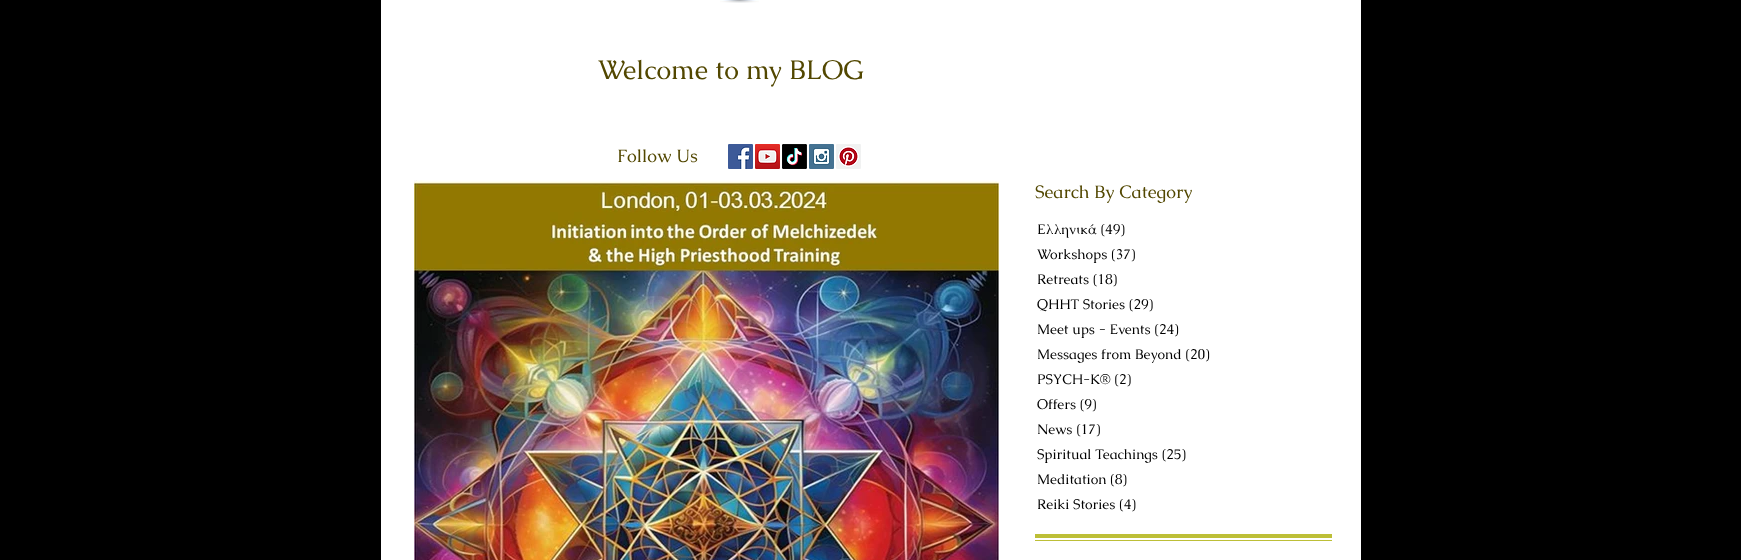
<?xml version="1.0" encoding="UTF-8"?>
<svg xmlns="http://www.w3.org/2000/svg" width="1741" height="560">
    <rect width="100%" height="100%" fill="#000000"/>
    <rect x="381" y="0" width="980" height="560" fill="#FFFFFF"/>
    <image x="720" y="0" width="39" height="3" href="img_01.png"/>
    <text x="598" y="79" font-family="Caudex" font-size="27" fill="#524700">Welcome to my BLOG</text>
    <text x="1035" y="198" font-family="Caudex" font-size="18" fill="#524700">Search By Category</text>
    <text font-family="Caudex" font-size="14" fill="#000000">
        <tspan x="1037" y="234">Ελληνικά (49)</tspan>
        <tspan x="1037" y="259">Workshops (37)</tspan>
        <tspan x="1037" y="284">Retreats (18)</tspan>
        <tspan x="1037" y="309">QHHT Stories (29)</tspan>
        <tspan x="1037" y="334">Meet ups - Events (24)</tspan>
        <tspan x="1037" y="359">Messages from Beyond (20)</tspan>
        <tspan x="1037" y="384">PSYCH-K® (2)</tspan>
        <tspan x="1037" y="409">Offers (9)</tspan>
        <tspan x="1037" y="434">News (17)</tspan>
        <tspan x="1037" y="459">Spiritual Teachings (25)</tspan>
        <tspan x="1037" y="484">Meditation (8)</tspan>
        <tspan x="1037" y="509">Reiki Stories (4)</tspan>
    </text>
    <rect x="1035" y="534" width="297" height="4" fill="#BDBF37"/>
    <rect x="1035" y="540" width="297" height="1" fill="#BDBF37"/>
    <text x="617" y="162" font-family="Caudex" font-size="18" fill="#524700">Follow Us</text>
    <image x="728" y="144" width="25" height="25" href="img_02.png"/>
    <image x="755" y="144" width="25" height="25" href="img_03.png"/>
    <image x="782" y="144" width="25" height="25" href="img_04.png"/>
    <image x="809" y="144" width="25" height="25" href="img_05.png"/>
    <image x="836" y="144" width="25" height="25" href="img_06.png"/>
    <image x="414" y="180" width="585" height="380" href="img_07.png"/>
</svg>
